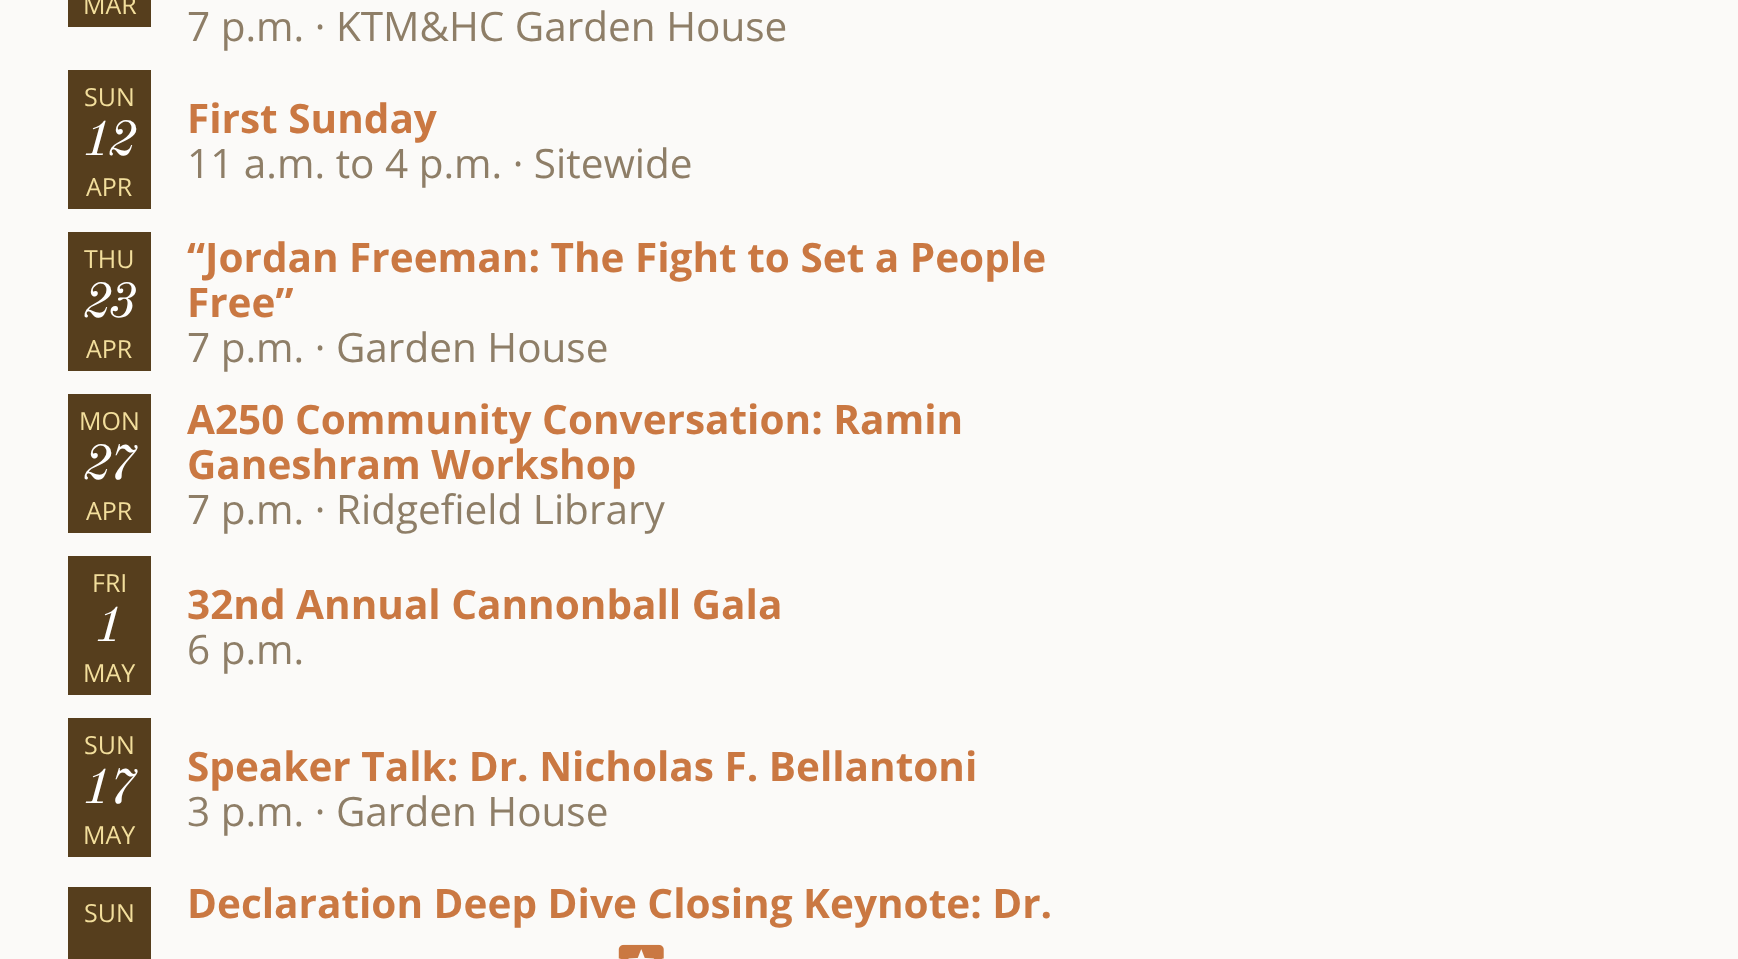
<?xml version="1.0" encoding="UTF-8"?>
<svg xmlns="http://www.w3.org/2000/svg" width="1738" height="959">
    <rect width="100%" height="100%" fill="#FBFAF8"/>
    <rect x="68" y="0" width="83" height="27" fill="#563E1D"/>
    <text x="83" y="14" font-family="Open Sans" font-size="25" fill="#F2DE9C">MAR</text>
    <text x="187" y="41" font-family="Open Sans" font-size="40.5" fill="#8E7E67">7 p.m. · KTM&amp;HC Garden House</text>
    <rect x="68" y="70" width="83" height="139" fill="#563E1D"/>
    <text x="84" y="106" font-family="Open Sans" font-size="25" fill="#F2DE9C">SUN</text>
    <text x="83" y="155" font-family="Old Standard TT" font-size="50" font-style="italic" letter-spacing="-4" fill="#FFFFFF">12</text>
    <text x="86" y="196" font-family="Open Sans" font-size="25" fill="#F2DE9C">APR</text>
    <text x="187" y="133" font-family="Open Sans" font-size="40.5" font-weight="700" fill="#CA7842">First Sunday</text>
    <text x="187" y="178" font-family="Open Sans" font-size="40.5" fill="#8E7E67">11 a.m. to 4 p.m. · Sitewide</text>
    <rect x="68" y="232" width="83" height="139" fill="#563E1D"/>
    <text x="84" y="268" font-family="Open Sans" font-size="25" fill="#F2DE9C">THU</text>
    <text x="83" y="317" font-family="Old Standard TT" font-size="50" font-style="italic" letter-spacing="-4" fill="#FFFFFF">23</text>
    <text x="86" y="358" font-family="Open Sans" font-size="25" fill="#F2DE9C">APR</text>
    <text font-family="Open Sans" font-size="40.5" font-weight="700" fill="#CA7842">
        <tspan x="187" y="272">“Jordan Freeman: The Fight to Set a People</tspan>
        <tspan x="187" y="317">Free”</tspan>
    </text>
    <text x="187" y="362" font-family="Open Sans" font-size="40.5" fill="#8E7E67">7 p.m. · Garden House</text>
    <rect x="68" y="394" width="83" height="139" fill="#563E1D"/>
    <text x="79" y="430" font-family="Open Sans" font-size="25" fill="#F2DE9C">MON</text>
    <text x="83" y="479" font-family="Old Standard TT" font-size="50" font-style="italic" letter-spacing="-4" fill="#FFFFFF">27</text>
    <text x="86" y="520" font-family="Open Sans" font-size="25" fill="#F2DE9C">APR</text>
    <text font-family="Open Sans" font-size="40.5" font-weight="700" fill="#CA7842">
        <tspan x="187" y="434">A250 Community Conversation: Ramin</tspan>
        <tspan x="187" y="479">Ganeshram Workshop</tspan>
    </text>
    <text x="187" y="524" font-family="Open Sans" font-size="40.5" fill="#8E7E67">7 p.m. · Ridgefield Library</text>
    <rect x="68" y="556" width="83" height="139" fill="#563E1D"/>
    <text x="92" y="592" font-family="Open Sans" font-size="25" fill="#F2DE9C">FRI</text>
    <text x="95" y="641" font-family="Old Standard TT" font-size="50" font-style="italic" letter-spacing="-4" fill="#FFFFFF">1</text>
    <text x="83" y="682" font-family="Open Sans" font-size="25" fill="#F2DE9C">MAY</text>
    <text x="187" y="619" font-family="Open Sans" font-size="40.5" font-weight="700" fill="#CA7842">32nd Annual Cannonball Gala</text>
    <text x="187" y="664" font-family="Open Sans" font-size="40.5" fill="#8E7E67">6 p.m.</text>
    <rect x="68" y="718" width="83" height="139" fill="#563E1D"/>
    <text x="84" y="754" font-family="Open Sans" font-size="25" fill="#F2DE9C">SUN</text>
    <text x="83" y="803" font-family="Old Standard TT" font-size="50" font-style="italic" letter-spacing="-4" fill="#FFFFFF">17</text>
    <text x="83" y="844" font-family="Open Sans" font-size="25" fill="#F2DE9C">MAY</text>
    <text x="187" y="781" font-family="Open Sans" font-size="40.5" font-weight="700" fill="#CA7842">Speaker Talk: Dr. Nicholas F. Bellantoni</text>
    <text x="187" y="826" font-family="Open Sans" font-size="40.5" fill="#8E7E67">3 p.m. · Garden House</text>
    <rect x="68" y="887" width="83" height="72" fill="#563E1D"/>
    <text x="84" y="922" font-family="Open Sans" font-size="25" fill="#F2DE9C">SUN</text>
    <text x="187" y="918" font-family="Open Sans" font-size="40.5" font-weight="700" fill="#CA7842">Declaration Deep Dive Closing Keynote: Dr.</text>
    <image x="618" y="944" width="46" height="15" href="img_01.png"/>
</svg>
